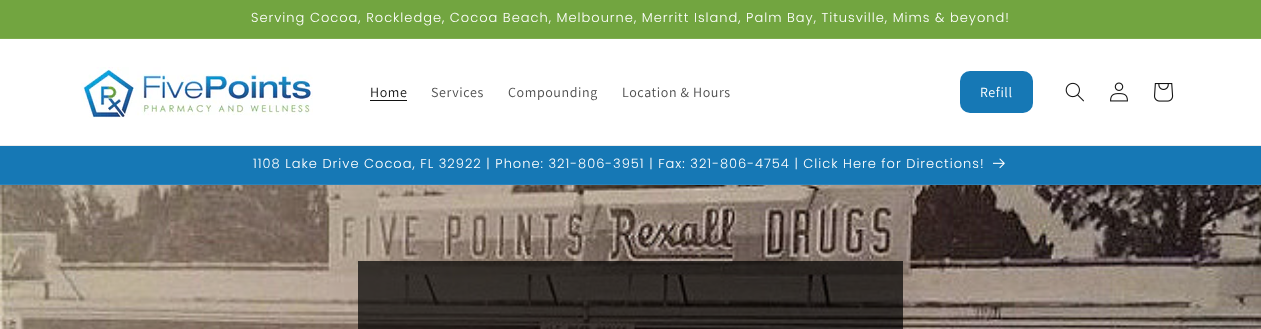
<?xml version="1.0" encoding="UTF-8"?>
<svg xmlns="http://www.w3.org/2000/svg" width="1261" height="329">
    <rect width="100%" height="100%" fill="#FFFFFF"/>
    <rect x="0" y="0" width="1261" height="38" fill="#72A540"/>
    <rect x="0" y="38" width="1261" height="1" fill="#7DAC4F"/>
    <text x="251" y="22" font-family="Poppins" font-size="13" font-weight="300" letter-spacing="1" fill="#FFFFFF">Serving Cocoa, Rockledge, Cocoa Beach, Melbourne, Merritt Island, Palm Bay, Titusville, Mims &amp; beyond!</text>
    <rect x="0" y="145" width="1261" height="1" fill="#ECECEC"/>
    <image x="81" y="67" width="232" height="51" href="img_01.png"/>
    <text x="370" y="97" font-family="Assistant" font-size="14" letter-spacing="0.6" fill="#121212">Home</text>
    <rect x="370" y="100" width="37" height="1" fill="#121212"/>
    <text x="431" y="97" font-family="Assistant" font-size="14" letter-spacing="0.6" fill="#4D4D4D">Services</text>
    <text x="508" y="97" font-family="Assistant" font-size="14" letter-spacing="0.6" fill="#4D4D4D">Compounding</text>
    <text x="622" y="97" font-family="Assistant" font-size="14" letter-spacing="0.6" fill="#4D4D4D">Location &amp; Hours</text>
    <rect x="960" y="71" width="73" height="42" rx="10" fill="#1678B5"/>
    <text x="980" y="97" font-family="Assistant" font-size="14" letter-spacing="0.6" fill="#FFFFFF">Refill</text>
    <image x="1065" y="82" width="19" height="20" href="img_02.png"/>
    <image x="1110" y="82" width="18" height="20" href="img_03.png"/>
    <image x="1154" y="83" width="20" height="19" href="img_04.png"/>
    <rect x="0" y="146" width="1261" height="38" fill="#1678B5"/>
    <rect x="0" y="184" width="1261" height="1" fill="#2983BB"/>
    <text x="253" y="168" font-family="Poppins" font-size="13" font-weight="300" letter-spacing="1" fill="#FFFFFF">1108 Lake Drive Cocoa, FL 32922 | Phone: 321-806-3951 | Fax: 321-806-4754 | Click Here for Directions!</text>
    <image x="993" y="158" width="12" height="11" href="img_05.png"/>
    <image x="0" y="185" width="1261" height="144" href="img_06.png"/>
    <rect x="358" y="261" width="545" height="68" fill="#000000" fill-opacity="0.7"/>
</svg>
